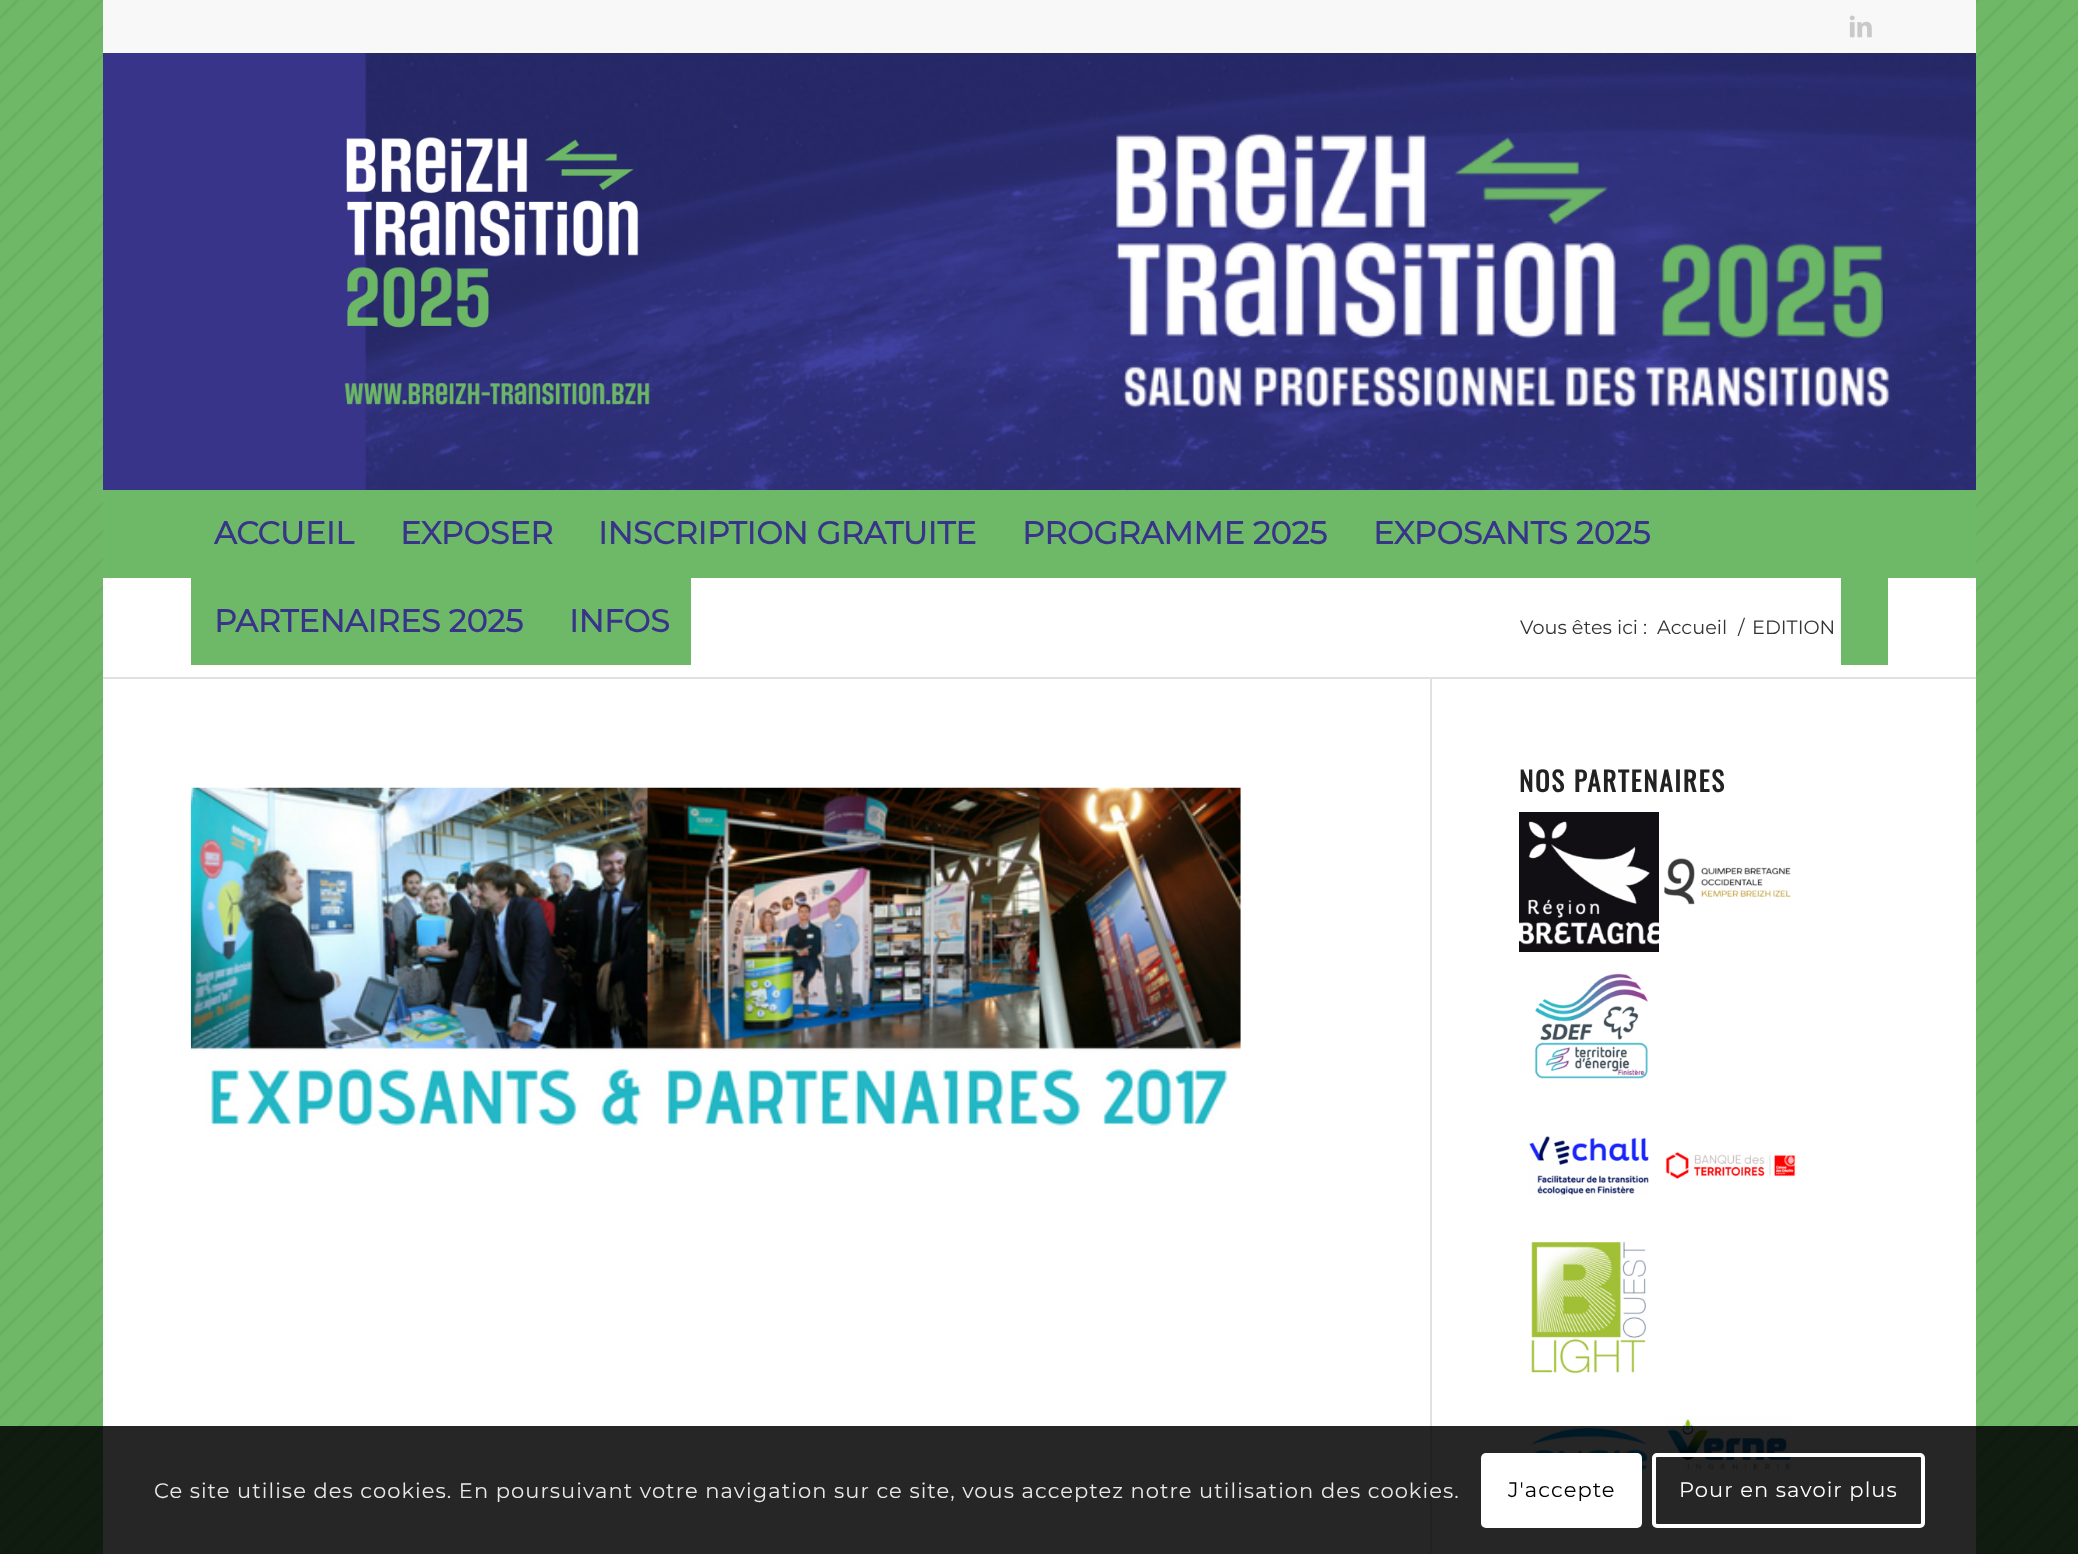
<?xml version="1.0" encoding="UTF-8"?>
<svg xmlns="http://www.w3.org/2000/svg" width="2078" height="1554">
    <rect width="100%" height="100%" fill="#6EB867"/>
    <image x="0" y="0" width="2078" height="1554" href="img_01.png"/>
    <rect x="103" y="0" width="1873" height="53" fill="#F8F8F8"/>
    <image x="1849" y="15" width="23" height="23" href="img_02.png"/>
    <rect x="103" y="53" width="264" height="437" fill="#37348A"/>
    <image x="365" y="53" width="1611" height="437" href="img_03.png"/>
    <image x="344" y="137" width="306" height="268" href="img_04.png"/>
    <rect x="103" y="490" width="1873" height="88" fill="#6EB967"/>
    <text x="214" y="544" font-family="Montserrat" font-size="31.5" font-weight="700" fill="#37348A">ACCUEIL</text>
    <text x="400" y="544" font-family="Montserrat" font-size="31.5" font-weight="700" fill="#37348A">EXPOSER</text>
    <text x="598" y="544" font-family="Montserrat" font-size="31.5" font-weight="700" fill="#37348A">INSCRIPTION GRATUITE</text>
    <text x="1022" y="544" font-family="Montserrat" font-size="31.5" font-weight="700" fill="#37348A">PROGRAMME 2025</text>
    <text x="1373" y="544" font-family="Montserrat" font-size="31.5" font-weight="700" fill="#37348A">EXPOSANTS 2025</text>
    <rect x="103" y="578" width="1873" height="99" fill="#FFFFFF"/>
    <rect x="191" y="578" width="500" height="87" fill="#6EB967"/>
    <text x="214" y="632" font-family="Montserrat" font-size="31.5" font-weight="700" fill="#37348A">PARTENAIRES 2025</text>
    <text x="569" y="632" font-family="Montserrat" font-size="31.5" font-weight="700" fill="#37348A">INFOS</text>
    <rect x="1841" y="578" width="47" height="87" fill="#6EB967"/>
    <text x="1520" y="634" font-family="Montserrat" font-size="19.25" font-weight="100" fill="#333333">Vous êtes ici :</text>
    <text x="1657" y="634" font-family="Montserrat" font-size="19.25" font-weight="100" fill="#333333">Accueil</text>
    <text x="1738" y="634" font-family="Montserrat" font-size="19.25" font-weight="100" fill="#333333">/</text>
    <text x="1752" y="634" font-family="Montserrat" font-size="19.25" font-weight="100" fill="#333333">EDITION</text>
    <rect x="103" y="679" width="1873" height="875" fill="#FFFFFF"/>
    <rect x="103" y="677" width="1873" height="2" fill="#E1E1E1"/>
    <rect x="1430" y="679" width="2" height="875" fill="#E1E1E1"/>
    <image x="190" y="787" width="1051" height="341" href="img_05.png"/>
    <text x="1519" y="792" font-family="Oswald" font-size="27" font-weight="700" letter-spacing="1.75" fill="#222222">NOS PARTENAIRES</text>
    <image x="1519" y="812" width="140" height="140" href="img_06.png"/>
    <image x="1664" y="858" width="127" height="47" href="img_07.png"/>
    <image x="1534" y="973" width="114" height="106" href="img_08.png"/>
    <image x="1529" y="1136" width="120" height="59" href="img_09.png"/>
    <image x="1665" y="1152" width="131" height="27" href="img_10.png"/>
    <image x="1531" y="1242" width="116" height="132" href="img_11.png"/>
    <image x="1530" y="1427" width="118" height="44" href="img_12.png"/>
    <image x="1665" y="1416" width="127" height="56" href="img_13.png"/>
    <rect x="0" y="1426" width="2078" height="128" fill="#000000" fill-opacity="0.85"/>
    <text x="154" y="1498" font-family="Montserrat" font-size="21" font-weight="100" letter-spacing="1.05" fill="#E9E9E9">Ce site utilise des cookies. En poursuivant votre navigation sur ce site, vous acceptez notre utilisation des cookies.</text>
    <rect x="1481" y="1453" width="161" height="75" rx="5" fill="#FFFFFF"/>
    <text x="1508" y="1497" font-family="Montserrat" font-size="21" font-weight="100" letter-spacing="1.05" fill="#000000">J'accepte</text>
    <rect x="1654" y="1455" width="269" height="71" rx="3" fill="none" stroke="#FFFFFF" stroke-width="4"/>
    <text x="1679" y="1497" font-family="Montserrat" font-size="21" font-weight="100" letter-spacing="1.05" fill="#FFFFFF">Pour en savoir plus</text>
</svg>
